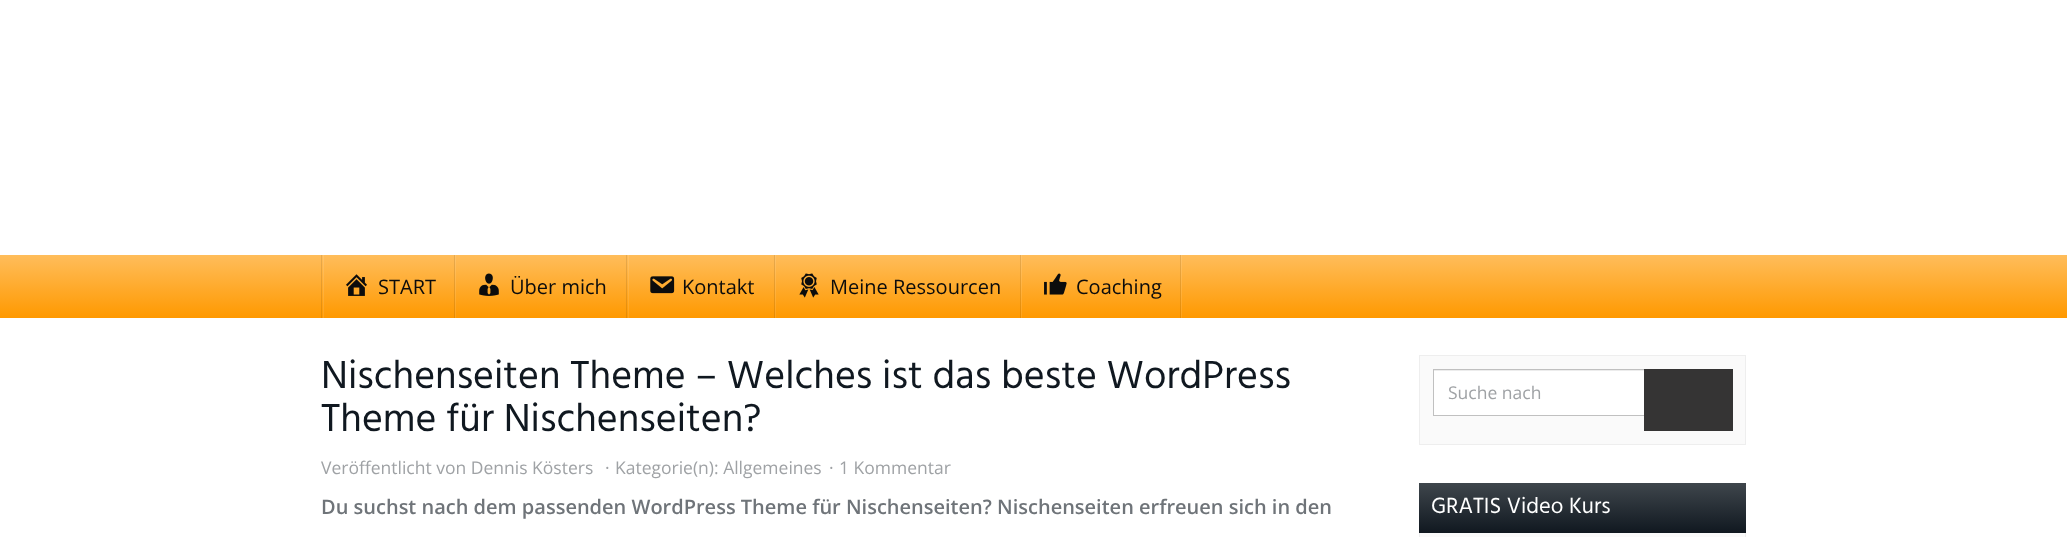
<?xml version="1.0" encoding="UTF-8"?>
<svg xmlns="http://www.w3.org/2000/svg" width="2067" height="537">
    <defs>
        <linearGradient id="g1" gradientUnits="userSpaceOnUse" x1="1034" y1="255" x2="1034" y2="318"><stop offset="0" stop-color="#FFBD5B"/><stop offset="1" stop-color="#FF9900"/></linearGradient>
        <linearGradient id="g2" gradientUnits="userSpaceOnUse" x1="1034" y1="255" x2="1034" y2="318"><stop offset="0" stop-color="#FFC46B"/><stop offset="1" stop-color="#FFA31A"/></linearGradient>
        <linearGradient id="g3" gradientUnits="userSpaceOnUse" x1="1034" y1="255" x2="1034" y2="318"><stop offset="0" stop-color="#E6AA52"/><stop offset="1" stop-color="#E68A00"/></linearGradient>
        <linearGradient id="g4" gradientUnits="userSpaceOnUse" x1="1583" y1="483" x2="1583" y2="533"><stop offset="0" stop-color="#3F464C"/><stop offset="1" stop-color="#101820"/></linearGradient>
    </defs>
    <rect width="100%" height="100%" fill="#FFFFFF"/>
    <rect x="0" y="255" width="2067" height="63" fill="url(#g1)"/>
    <rect x="1021" y="255" width="1" height="63" fill="url(#g2)"/>
    <rect x="1180" y="255" width="1" height="63" fill="url(#g3)"/>
    <rect x="775" y="255" width="1" height="63" fill="url(#g2)"/>
    <rect x="1020" y="255" width="1" height="63" fill="url(#g3)"/>
    <rect x="628" y="255" width="1" height="63" fill="url(#g2)"/>
    <rect x="774" y="255" width="1" height="63" fill="url(#g3)"/>
    <rect x="455" y="255" width="1" height="63" fill="url(#g2)"/>
    <rect x="626" y="255" width="1" height="63" fill="url(#g3)"/>
    <rect x="323" y="255" width="1" height="63" fill="url(#g2)"/>
    <rect x="454" y="255" width="1" height="63" fill="url(#g3)"/>
    <rect x="321" y="255" width="1" height="63" fill="url(#g3)"/>
    <rect x="1181" y="255" width="1" height="63" fill="url(#g2)"/>
    <image x="346" y="274" width="21" height="22" href="img_01.png"/>
    <text x="378" y="294" font-family="Open Sans" font-size="20" fill="#0C0C0C">START</text>
    <image x="479" y="273" width="20" height="23" href="img_02.png"/>
    <text x="510" y="294" font-family="Open Sans" font-size="20" fill="#0C0C0C">Über mich</text>
    <image x="650" y="276" width="25" height="18" href="img_03.png"/>
    <text x="682" y="294" font-family="Open Sans" font-size="20" fill="#0C0C0C">Kontakt</text>
    <image x="799" y="273" width="20" height="25" href="img_04.png"/>
    <text x="830" y="294" font-family="Open Sans" font-size="20" fill="#0C0C0C">Meine Ressourcen</text>
    <image x="1044" y="273" width="23" height="22" href="img_05.png"/>
    <text x="1076" y="294" font-family="Open Sans" font-size="20" fill="#0C0C0C">Coaching</text>
    <text font-family="Hind" font-size="40" fill="#101820">
        <tspan x="321" y="388">Nischenseiten Theme – Welches ist das beste WordPress</tspan>
        <tspan x="321" y="431">Theme für Nischenseiten?</tspan>
    </text>
    <text x="321" y="474" font-family="Open Sans" font-size="17.5" fill="#9FA2A5">Veröffentlicht von Dennis Kösters</text>
    <text x="605" y="474" font-family="Open Sans" font-size="17.5" fill="#9FA2A5">·</text>
    <text x="615" y="474" font-family="Open Sans" font-size="17.5" fill="#9FA2A5">Kategorie(n): Allgemeines</text>
    <text x="829" y="474" font-family="Open Sans" font-size="17.5" fill="#9FA2A5">·</text>
    <text x="839" y="474" font-family="Open Sans" font-size="17.5" fill="#9FA2A5">1 Kommentar</text>
    <text x="321" y="514" font-family="Open Sans" font-size="20" font-weight="600" fill="#6F7479">Du suchst nach dem passenden WordPress Theme für Nischenseiten? Nischenseiten erfreuen sich in den</text>
    <rect x="1419.5" y="355.5" width="326" height="89" fill="#FAFAFA" stroke="#EEEEEE"/>
    <rect x="1434" y="371" width="210" height="44" fill="#FFFFFF"/>
    <rect x="1434" y="370" width="210" height="1" fill="#ECECEC"/>
    <rect x="1433.5" y="369.5" width="211" height="46" fill="none" stroke="#C0C0C0"/>
    <text x="1448" y="399" font-family="Open Sans" font-size="17.5" fill="#9FA2A5">Suche nach</text>
    <rect x="1644" y="369" width="89" height="62" fill="#353434"/>
    <rect x="1420" y="533" width="325" height="4" fill="#FAFAFA"/>
    <rect x="1419.5" y="483.5" width="326" height="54" fill="none" stroke="#EEEEEE"/>
    <rect x="1419" y="483" width="327" height="50" fill="url(#g4)"/>
    <text x="1431" y="513" font-family="Hind" font-size="22.5" fill="#FFFFFF">GRATIS Video Kurs</text>
</svg>
